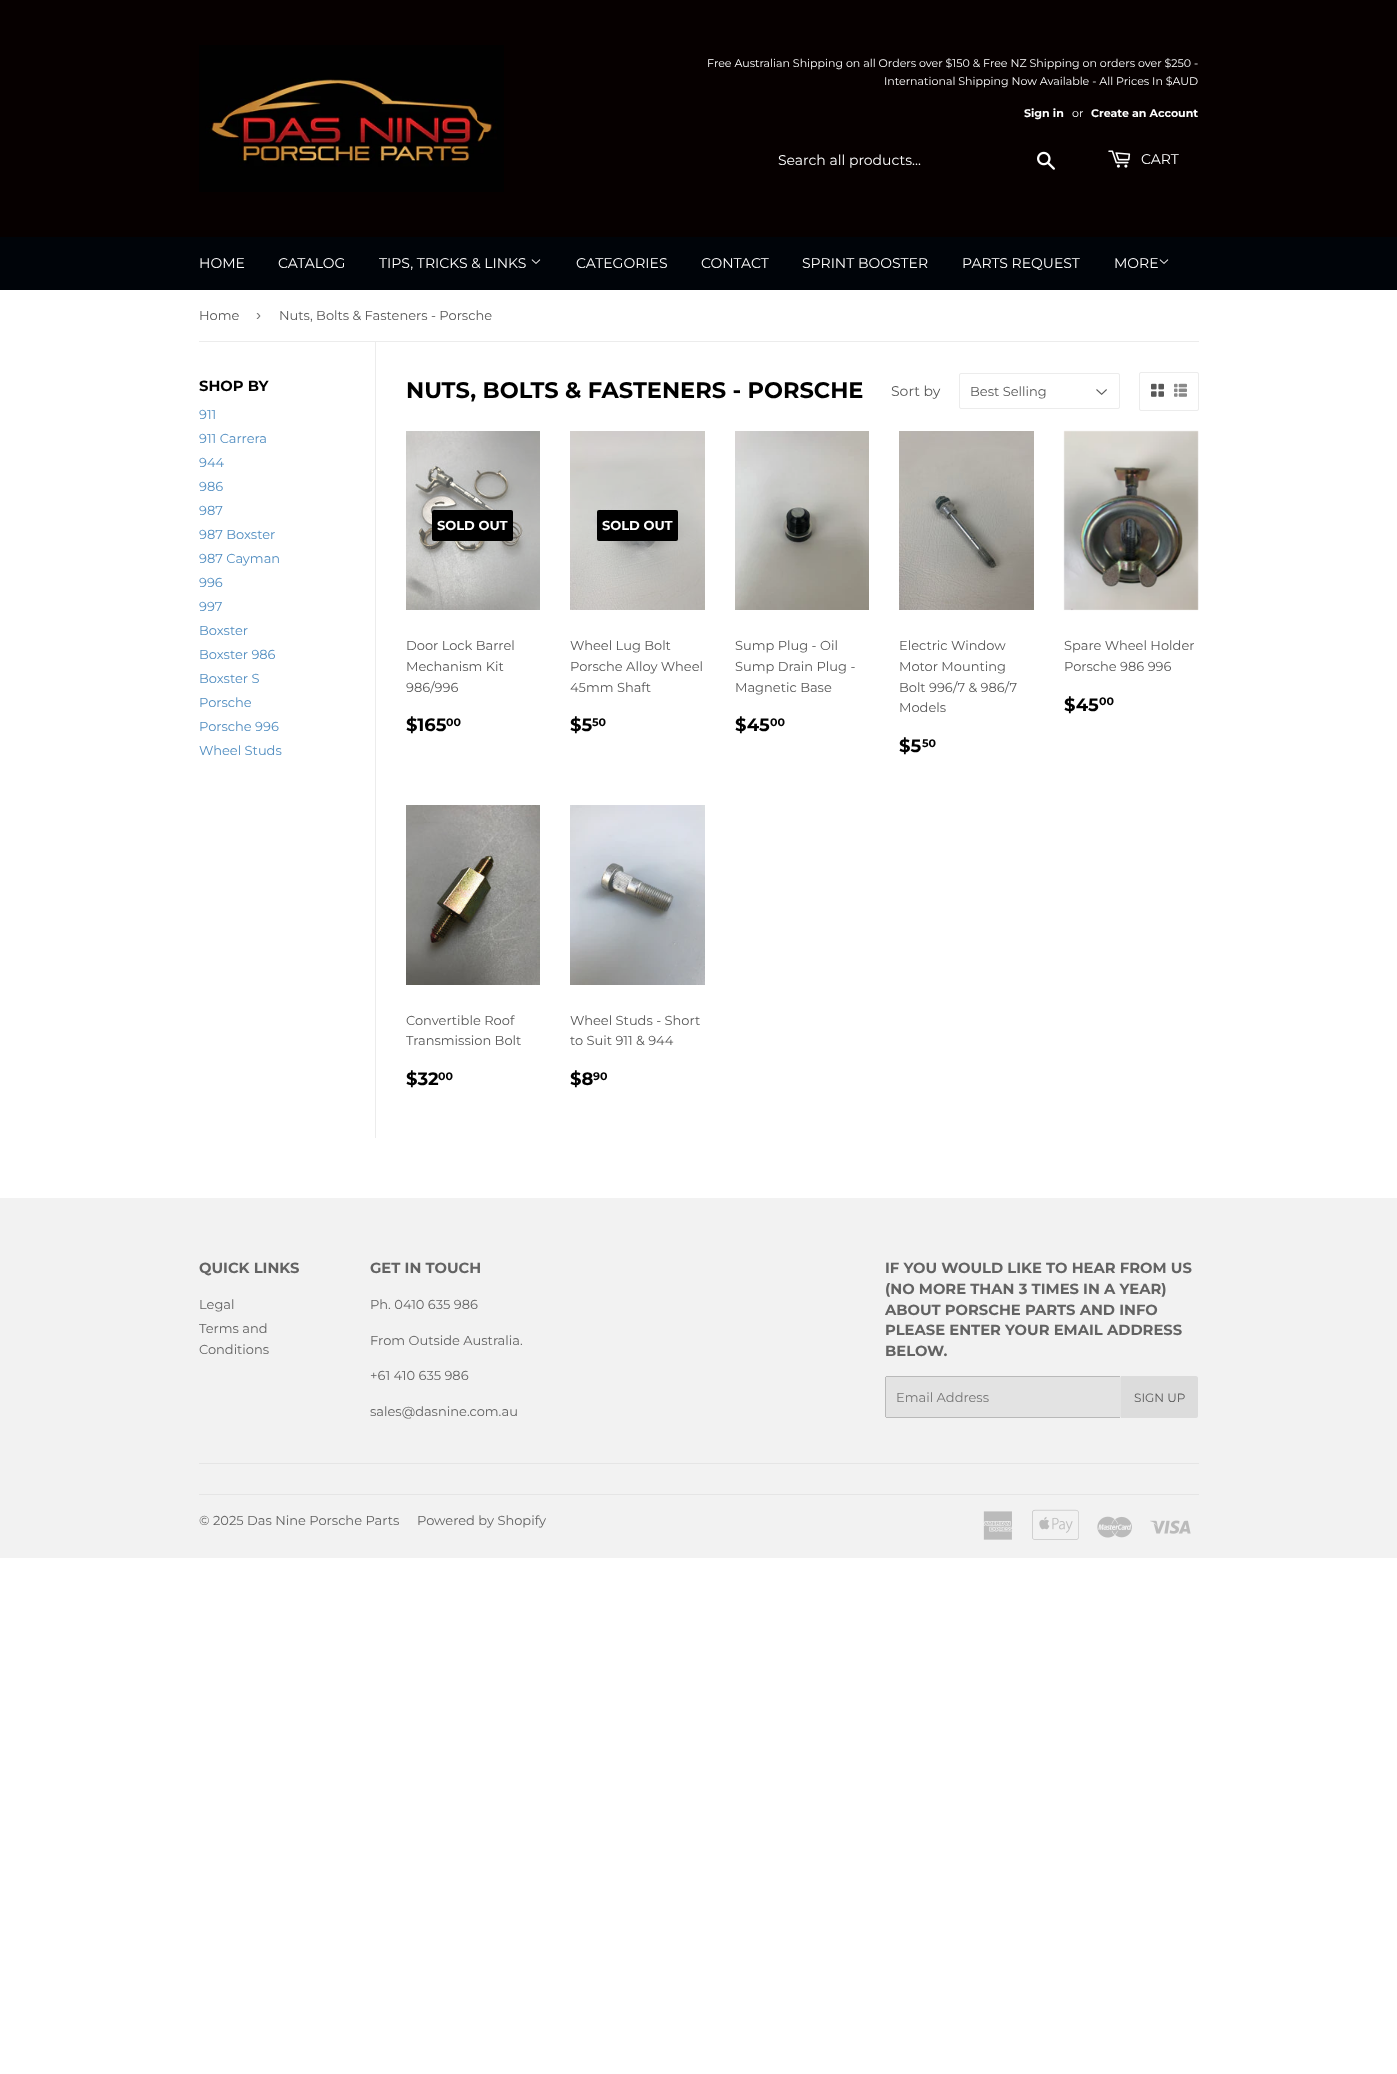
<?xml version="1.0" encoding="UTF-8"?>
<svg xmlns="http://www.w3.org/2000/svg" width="1397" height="2074">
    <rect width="100%" height="100%" fill="#FFFFFF"/>
    <rect x="0" y="0" width="1397" height="237" fill="#060000"/>
    <image x="199" y="45" width="305" height="147" href="img_01.png"/>
    <text x="707" y="67" font-family="Montserrat" font-size="11.05" fill="#FFFFFF">Free Australian Shipping on all Orders over $150 &amp; Free NZ Shipping on orders over $250 -</text>
    <text x="884" y="85" font-family="Montserrat" font-size="11.05" fill="#FFFFFF">International Shipping Now Available - All Prices In $AUD</text>
    <text x="1024" y="117" font-family="Montserrat" font-size="11.05" font-weight="700" fill="#FFFFFF">Sign in</text>
    <text x="1072" y="117" font-family="Montserrat" font-size="11.05" fill="#FFFFFF">or</text>
    <text x="1091" y="117" font-family="Montserrat" font-size="11.05" font-weight="700" fill="#FFFFFF">Create an Account</text>
    <text x="778" y="165" font-family="Montserrat" font-size="14" fill="#FFFFFF">Search all products...</text>
    <image x="1037" y="151" width="18" height="19" href="img_02.png"/>
    <image x="1108" y="150" width="23" height="18" href="img_03.png"/>
    <text x="1141" y="164" font-family="Montserrat" font-size="14" fill="#FFFFFF">CART</text>
    <rect x="0" y="237" width="1397" height="53" fill="#000409"/>
    <text x="199" y="268" font-family="Montserrat" font-size="14" fill="#FFFFFF">HOME</text>
    <text x="278" y="268" font-family="Montserrat" font-size="14" fill="#FFFFFF">CATALOG</text>
    <text x="379" y="268" font-family="Montserrat" font-size="14" fill="#FFFFFF">TIPS, TRICKS &amp; LINKS</text>
    <image x="531" y="259" width="10" height="5" href="img_04.png"/>
    <text x="576" y="268" font-family="Montserrat" font-size="14" fill="#FFFFFF">CATEGORIES</text>
    <text x="701" y="268" font-family="Montserrat" font-size="14" fill="#FFFFFF">CONTACT</text>
    <text x="802" y="268" font-family="Montserrat" font-size="14" fill="#FFFFFF">SPRINT BOOSTER</text>
    <text x="962" y="268" font-family="Montserrat" font-size="14" fill="#FFFFFF">PARTS REQUEST</text>
    <text x="1114" y="268" font-family="Montserrat" font-size="14" fill="#FFFFFF">MORE</text>
    <image x="1159" y="259" width="10" height="5" href="img_04.png"/>
    <rect x="199" y="341" width="1000" height="1" fill="#ECECEC"/>
    <text x="199" y="320" font-family="Montserrat" font-size="13" fill="#585858">Home</text>
    <text x="256" y="320" font-family="Liberation Sans" font-size="15" fill="#767676">›</text>
    <text x="279" y="320" font-family="Montserrat" font-size="13" fill="#585858">Nuts, Bolts &amp; Fasteners - Porsche</text>
    <text x="199" y="391" font-family="Montserrat" font-size="14.75" font-weight="700" fill="#000000">SHOP BY</text>
    <text font-family="Montserrat" font-size="13" fill="#528EC1">
        <tspan x="199" y="419">911</tspan>
        <tspan x="199" y="443">911 Carrera</tspan>
        <tspan x="199" y="467">944</tspan>
        <tspan x="199" y="491">986</tspan>
        <tspan x="199" y="515">987</tspan>
        <tspan x="199" y="539">987 Boxster</tspan>
        <tspan x="199" y="563">987 Cayman</tspan>
        <tspan x="199" y="587">996</tspan>
        <tspan x="199" y="611">997</tspan>
        <tspan x="199" y="635">Boxster</tspan>
        <tspan x="199" y="659">Boxster 986</tspan>
        <tspan x="199" y="683">Boxster S</tspan>
        <tspan x="199" y="707">Porsche</tspan>
        <tspan x="199" y="731">Porsche 996</tspan>
        <tspan x="199" y="755">Wheel Studs</tspan>
    </text>
    <rect x="375" y="342" width="1" height="796" fill="#ECECEC"/>
    <text x="406" y="398" font-family="Montserrat" font-size="22.5" font-weight="700" fill="#000000">NUTS, BOLTS &amp; FASTENERS - PORSCHE</text>
    <text x="891" y="396" font-family="Montserrat" font-size="14" fill="#585858">Sort by</text>
    <image x="1096" y="389" width="11" height="6" href="img_05.png"/>
    <rect x="959.5" y="373.5" width="160" height="35" rx="1.5" fill="none" stroke="#ECECEC"/>
    <text x="970" y="396" font-family="Montserrat" font-size="13" fill="#585858">Best Selling</text>
    <rect x="1139.5" y="372.5" width="59" height="38" rx="1.5" fill="none" stroke="#ECECEC"/>
    <image x="1151" y="383" width="13" height="14" href="img_06.png"/>
    <image x="1174" y="383" width="13" height="14" href="img_07.png"/>
    <image x="406" y="431" width="134" height="179" href="img_08.png"/>
    <rect x="432" y="510" width="81" height="31" rx="2" fill="#000000"/>
    <text x="437" y="530" font-family="Montserrat" font-size="13" font-weight="700" fill="#FFFFFF">SOLD OUT</text>
    <text font-family="Montserrat" font-size="13" fill="#585858">
        <tspan x="406" y="650">Door Lock Barrel</tspan>
        <tspan x="406" y="671">Mechanism Kit</tspan>
        <tspan x="406" y="692">986/996</tspan>
    </text>
    <text x="406" y="731" font-family="Montserrat" font-size="18" font-weight="700" fill="#000000">$165</text>
    <text x="446" y="726" font-family="Montserrat" font-size="11" font-weight="700" fill="#000000">00</text>
    <image x="570" y="431" width="135" height="179" href="img_09.png"/>
    <rect x="597" y="510" width="81" height="31" rx="2" fill="#000000"/>
    <text x="602" y="530" font-family="Montserrat" font-size="13" font-weight="700" fill="#FFFFFF">SOLD OUT</text>
    <text font-family="Montserrat" font-size="13" fill="#585858">
        <tspan x="570" y="650">Wheel Lug Bolt</tspan>
        <tspan x="570" y="671">Porsche Alloy Wheel</tspan>
        <tspan x="570" y="692">45mm Shaft</tspan>
    </text>
    <text x="570" y="731" font-family="Montserrat" font-size="18" font-weight="700" fill="#000000">$5</text>
    <text x="592" y="726" font-family="Montserrat" font-size="11" font-weight="700" fill="#000000">50</text>
    <image x="735" y="431" width="134" height="179" href="img_10.png"/>
    <text font-family="Montserrat" font-size="13" fill="#585858">
        <tspan x="735" y="650">Sump Plug - Oil</tspan>
        <tspan x="735" y="671">Sump Drain Plug -</tspan>
        <tspan x="735" y="692">Magnetic Base</tspan>
    </text>
    <text x="735" y="731" font-family="Montserrat" font-size="18" font-weight="700" fill="#000000">$45</text>
    <text x="770" y="726" font-family="Montserrat" font-size="11" font-weight="700" fill="#000000">00</text>
    <image x="899" y="431" width="135" height="179" href="img_11.png"/>
    <text font-family="Montserrat" font-size="13" fill="#585858">
        <tspan x="899" y="650">Electric Window</tspan>
        <tspan x="899" y="671">Motor Mounting</tspan>
        <tspan x="899" y="692">Bolt 996/7 &amp; 986/7</tspan>
        <tspan x="899" y="712">Models</tspan>
    </text>
    <text x="899" y="752" font-family="Montserrat" font-size="18" font-weight="700" fill="#000000">$5</text>
    <text x="922" y="747" font-family="Montserrat" font-size="11" font-weight="700" fill="#000000">50</text>
    <image x="1063" y="430" width="136" height="181" href="img_12.png"/>
    <text font-family="Montserrat" font-size="13" fill="#585858">
        <tspan x="1064" y="650">Spare Wheel Holder</tspan>
        <tspan x="1064" y="671">Porsche 986 996</tspan>
    </text>
    <text x="1064" y="711" font-family="Montserrat" font-size="18" font-weight="700" fill="#000000">$45</text>
    <text x="1099" y="705" font-family="Montserrat" font-size="11" font-weight="700" fill="#000000">00</text>
    <image x="406" y="805" width="134" height="180" href="img_13.png"/>
    <text font-family="Montserrat" font-size="13" fill="#585858">
        <tspan x="406" y="1025">Convertible Roof</tspan>
        <tspan x="406" y="1045">Transmission Bolt</tspan>
    </text>
    <text x="406" y="1085" font-family="Montserrat" font-size="18" font-weight="700" fill="#000000">$32</text>
    <text x="438" y="1080" font-family="Montserrat" font-size="11" font-weight="700" fill="#000000">00</text>
    <image x="570" y="805" width="135" height="180" href="img_14.png"/>
    <text font-family="Montserrat" font-size="13" fill="#585858">
        <tspan x="570" y="1025">Wheel Studs - Short</tspan>
        <tspan x="570" y="1045">to Suit 911 &amp; 944</tspan>
    </text>
    <text x="570" y="1085" font-family="Montserrat" font-size="18" font-weight="700" fill="#000000">$8</text>
    <text x="593" y="1080" font-family="Montserrat" font-size="11" font-weight="700" fill="#000000">90</text>
    <rect x="0" y="1198" width="1397" height="360" fill="#F2F2F2"/>
    <text x="199" y="1273" font-family="Montserrat" font-size="14.75" font-weight="700" fill="#636363">QUICK LINKS</text>
    <text font-family="Montserrat" font-size="13" fill="#636363">
        <tspan x="199" y="1309">Legal</tspan>
        <tspan x="199" y="1333">Terms and</tspan>
        <tspan x="199" y="1354">Conditions</tspan>
    </text>
    <text x="370" y="1273" font-family="Montserrat" font-size="14.75" font-weight="700" fill="#636363">GET IN TOUCH</text>
    <text x="370" y="1309" font-family="Montserrat" font-size="13" fill="#636363">Ph. 0410 635 986</text>
    <text x="370" y="1345" font-family="Montserrat" font-size="13" fill="#636363">From Outside Australia.</text>
    <text x="370" y="1380" font-family="Montserrat" font-size="13" fill="#636363">+61 410 635 986</text>
    <text x="370" y="1416" font-family="Montserrat" font-size="13" fill="#636363">sales@dasnine.com.au</text>
    <text font-family="Montserrat" font-size="14.75" font-weight="700" fill="#636363">
        <tspan x="885" y="1273">IF YOU WOULD LIKE TO HEAR FROM US</tspan>
        <tspan x="885" y="1294">(NO MORE THAN 3 TIMES IN A YEAR)</tspan>
        <tspan x="885" y="1315">ABOUT PORSCHE PARTS AND INFO</tspan>
        <tspan x="885" y="1335">PLEASE ENTER YOUR EMAIL ADDRESS</tspan>
        <tspan x="885" y="1356">BELOW.</tspan>
    </text>
    <rect x="885" y="1376" width="236" height="42" rx="2" fill="#E3E3E3"/>
    <rect x="886" y="1376" width="234" height="1" fill="#B9B9B9"/>
    <rect x="886" y="1417" width="234" height="1" fill="#B9B9B9"/>
    <rect x="885" y="1377" width="1" height="40" fill="#B9B9B9"/>
    <text x="896" y="1402" font-family="Montserrat" font-size="13" fill="#767676">Email Address</text>
    <path d="M 1121 1376 H 1196 C 1197 1376 1198 1377 1198 1378 V 1416 C 1198 1417 1197 1418 1196 1418 H 1121 Z" fill="#DCDCDC"/>
    <text x="1134" y="1402" font-family="Montserrat" font-size="12" fill="#585858">SIGN UP</text>
    <rect x="199" y="1463" width="1000" height="1" fill="#E5E5E5"/>
    <rect x="199" y="1494" width="1000" height="1" fill="#E5E5E5"/>
    <text x="199" y="1525" font-family="Montserrat" font-size="13" fill="#636363">© 2025 Das Nine Porsche Parts</text>
    <text x="417" y="1525" font-family="Montserrat" font-size="13" fill="#636363">Powered by Shopify</text>
    <image x="983" y="1511" width="30" height="29" href="img_15.png"/>
    <image x="1032" y="1509" width="47" height="31" href="img_16.png"/>
    <image x="1097" y="1516" width="35" height="22" href="img_17.png"/>
    <image x="1150" y="1520" width="41" height="14" href="img_18.png"/>
</svg>
